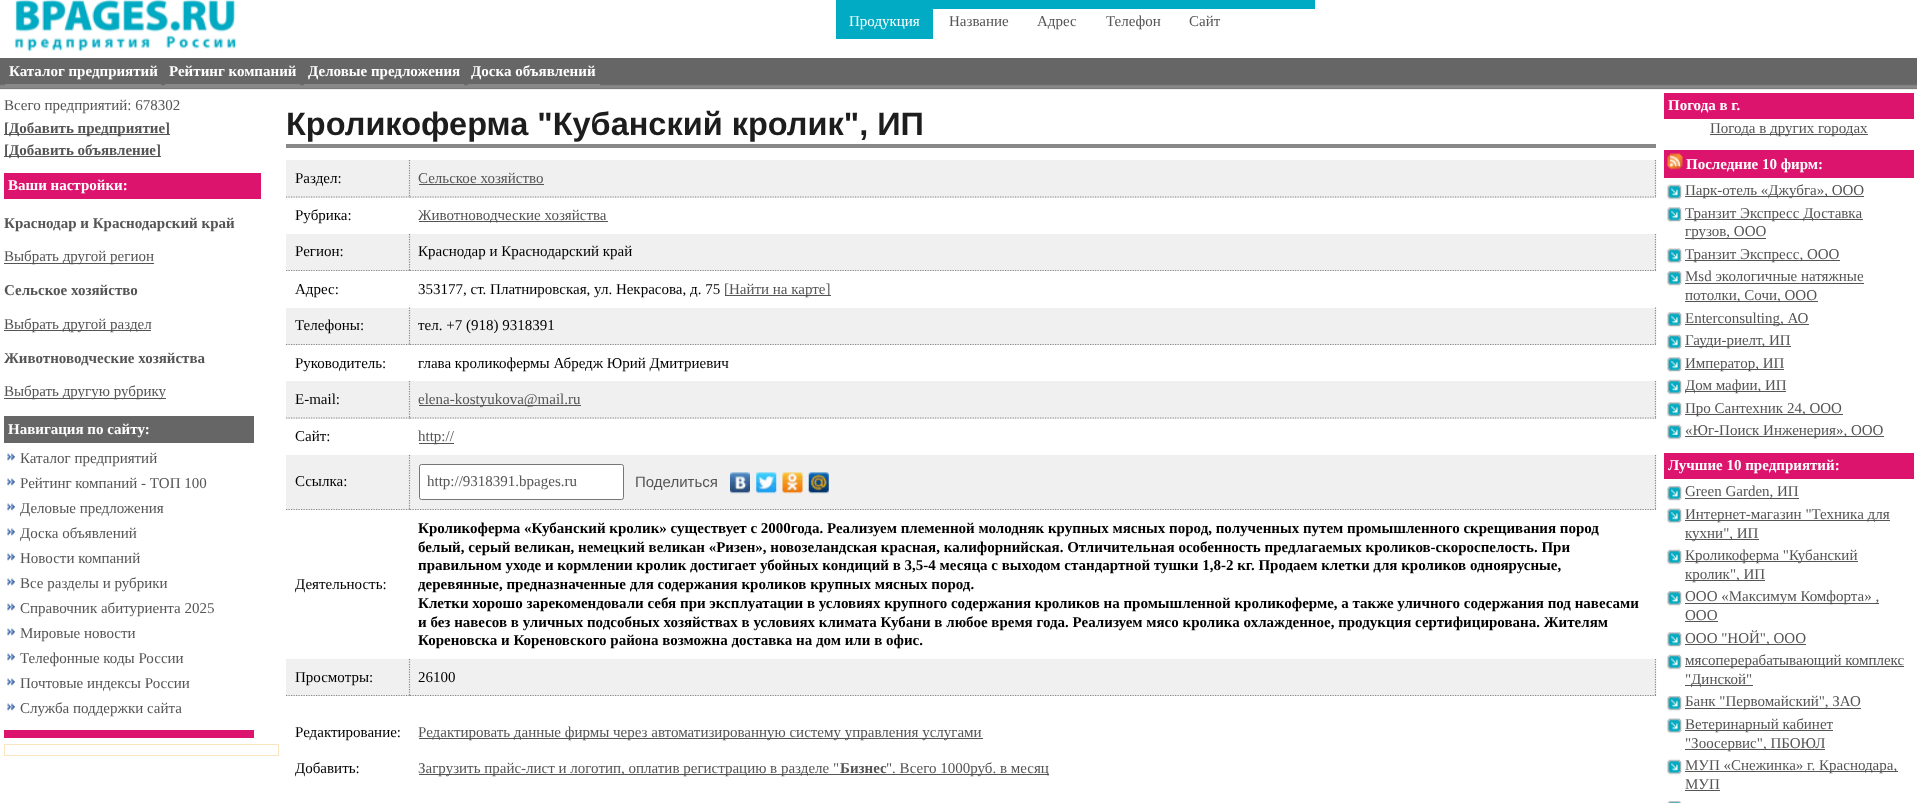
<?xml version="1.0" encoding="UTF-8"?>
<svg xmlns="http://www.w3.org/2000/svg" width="1917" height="803">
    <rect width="100%" height="100%" fill="#FFFFFF"/>
    <image x="14" y="0" width="223" height="52" href="img_01.png"/>
    <rect x="836" y="0" width="479" height="9" fill="#00ABC3"/>
    <rect x="836" y="9" width="97" height="30" fill="#00ABC3"/>
    <text x="849" y="26" font-family="Liberation Serif" font-size="15" fill="#FFFFFF">Продукция</text>
    <text x="949" y="26" font-family="Liberation Serif" font-size="15" fill="#555555">Название</text>
    <text x="1037" y="26" font-family="Liberation Serif" font-size="15" fill="#555555">Адрес</text>
    <text x="1106" y="26" font-family="Liberation Serif" font-size="15" fill="#555555">Телефон</text>
    <text x="1189" y="26" font-family="Liberation Serif" font-size="15" fill="#555555">Сайт</text>
    <rect x="0" y="58" width="1917" height="31" fill="#666666"/>
    <image x="0" y="84" width="1917" height="6" href="img_02.png"/>
    <text x="9" y="76" font-family="Liberation Serif" font-size="15" font-weight="700" fill="#FFFFFF">Каталог предприятий</text>
    <rect x="5" y="84" width="156" height="2" fill="#888888"/>
    <text x="169" y="76" font-family="Liberation Serif" font-size="15" font-weight="700" fill="#FFFFFF">Рейтинг компаний</text>
    <rect x="165" y="84" width="135" height="2" fill="#888888"/>
    <text x="308" y="76" font-family="Liberation Serif" font-size="15" font-weight="700" fill="#FFFFFF">Деловые предложения</text>
    <rect x="304" y="84" width="160" height="2" fill="#888888"/>
    <text x="471" y="76" font-family="Liberation Serif" font-size="15" font-weight="700" fill="#FFFFFF">Доска объявлений</text>
    <rect x="468" y="84" width="132" height="2" fill="#888888"/>
    <text x="4" y="110" font-family="Liberation Serif" font-size="15" fill="#555555">Всего предприятий: 678302</text>
    <rect x="4" y="134" width="166" height="1" fill="#555555"/>
    <text x="4" y="133" font-family="Liberation Serif" font-size="15" font-weight="700" fill="#555555">[Добавить предприятие]</text>
    <rect x="4" y="156" width="157" height="1" fill="#555555"/>
    <text x="4" y="155" font-family="Liberation Serif" font-size="15" font-weight="700" fill="#555555">[Добавить объявление]</text>
    <rect x="4" y="173" width="257" height="26" fill="#DD146D"/>
    <text x="8" y="190" font-family="Liberation Serif" font-size="15" font-weight="700" fill="#FFFFFF">Ваши настройки:</text>
    <text x="4" y="228" font-family="Liberation Serif" font-size="15" font-weight="700" fill="#555555">Краснодар и Краснодарский край</text>
    <rect x="4" y="263" width="150" height="1" fill="#555555"/>
    <text x="4" y="261" font-family="Liberation Serif" font-size="15" fill="#555555">Выбрать другой регион</text>
    <text x="4" y="295" font-family="Liberation Serif" font-size="15" font-weight="700" fill="#555555">Сельское хозяйство</text>
    <rect x="4" y="330" width="147" height="1" fill="#555555"/>
    <text x="4" y="329" font-family="Liberation Serif" font-size="15" fill="#555555">Выбрать другой раздел</text>
    <text x="4" y="363" font-family="Liberation Serif" font-size="15" font-weight="700" fill="#555555">Животноводческие хозяйства</text>
    <rect x="4" y="398" width="162" height="1" fill="#555555"/>
    <text x="4" y="396" font-family="Liberation Serif" font-size="15" fill="#555555">Выбрать другую рубрику</text>
    <rect x="4" y="416" width="250" height="27" fill="#666666"/>
    <text x="8" y="434" font-family="Liberation Serif" font-size="15" font-weight="700" fill="#FFFFFF">Навигация по сайту:</text>
    <image x="7" y="453" width="8" height="8" href="img_03.png"/>
    <text x="20" y="463" font-family="Liberation Serif" font-size="15" fill="#555555">Каталог предприятий</text>
    <image x="7" y="478" width="8" height="8" href="img_03.png"/>
    <text x="20" y="488" font-family="Liberation Serif" font-size="15" fill="#555555">Рейтинг компаний - ТОП 100</text>
    <image x="7" y="503" width="8" height="8" href="img_03.png"/>
    <text x="20" y="513" font-family="Liberation Serif" font-size="15" fill="#555555">Деловые предложения</text>
    <image x="7" y="528" width="8" height="8" href="img_03.png"/>
    <text x="20" y="538" font-family="Liberation Serif" font-size="15" fill="#555555">Доска объявлений</text>
    <image x="7" y="553" width="8" height="8" href="img_03.png"/>
    <text x="20" y="563" font-family="Liberation Serif" font-size="15" fill="#555555">Новости компаний</text>
    <image x="7" y="578" width="8" height="8" href="img_03.png"/>
    <text x="20" y="588" font-family="Liberation Serif" font-size="15" fill="#555555">Все разделы и рубрики</text>
    <image x="7" y="603" width="8" height="8" href="img_03.png"/>
    <text x="20" y="613" font-family="Liberation Serif" font-size="15" fill="#555555">Справочник абитуриента 2025</text>
    <image x="7" y="628" width="8" height="8" href="img_03.png"/>
    <text x="20" y="638" font-family="Liberation Serif" font-size="15" fill="#555555">Мировые новости</text>
    <image x="7" y="653" width="8" height="8" href="img_03.png"/>
    <text x="20" y="663" font-family="Liberation Serif" font-size="15" fill="#555555">Телефонные коды России</text>
    <image x="7" y="678" width="8" height="8" href="img_03.png"/>
    <text x="20" y="688" font-family="Liberation Serif" font-size="15" fill="#555555">Почтовые индексы России</text>
    <image x="7" y="703" width="8" height="8" href="img_04.png"/>
    <text x="20" y="713" font-family="Liberation Serif" font-size="15" fill="#555555">Служба поддержки сайта</text>
    <rect x="4" y="730" width="250" height="8" fill="#DD146D"/>
    <rect x="4.5" y="744.5" width="274" height="11" fill="none" stroke="#FBE5C0"/>
    <rect x="286" y="144" width="1370" height="4" fill="#888888"/>
    <text x="286" y="135" font-family="Liberation Sans" font-size="32.5" font-weight="700" fill="#1D1D1D">Кроликоферма "Кубанский кролик", ИП</text>
    <rect x="286" y="160" width="1370" height="38" fill="#F0F0F0"/>
    <path d="M 409.5 160 V 197.5" fill="none" stroke="#888888" stroke-width="1.2" stroke-dasharray="1.25 1.25"/>
    <path d="M 286 197 H 410" fill="none" stroke="#888888" stroke-width="1.2" stroke-dasharray="1.25 1.25"/>
    <text x="295" y="183" font-family="Liberation Serif" font-size="15" fill="#000000">Раздел:</text>
    <path d="M 1655.5 160 V 197.5" fill="none" stroke="#888888" stroke-width="1.2" stroke-dasharray="1.25 1.25"/>
    <path d="M 410 197 H 1656" fill="none" stroke="#888888" stroke-width="1.2" stroke-dasharray="1.25 1.25"/>
    <text x="418" y="183" font-family="Liberation Serif" font-size="15" fill="#555555">Сельское хозяйство</text>
    <rect x="419" y="184" width="125" height="1" fill="#555555"/>
    <text x="295" y="220" font-family="Liberation Serif" font-size="15" fill="#000000">Рубрика:</text>
    <rect x="419" y="221" width="189" height="1" fill="#555555"/>
    <text x="418" y="220" font-family="Liberation Serif" font-size="15" fill="#555555">Животноводческие хозяйства</text>
    <rect x="286" y="234" width="1370" height="37" fill="#F0F0F0"/>
    <path d="M 409.5 234 V 271" fill="none" stroke="#888888" stroke-width="1.2" stroke-dasharray="1.25 1.25"/>
    <path d="M 286 270.5 H 410" fill="none" stroke="#888888" stroke-width="1.2" stroke-dasharray="1.25 1.25"/>
    <text x="295" y="256" font-family="Liberation Serif" font-size="15" fill="#000000">Регион:</text>
    <path d="M 1655.5 234 V 271" fill="none" stroke="#888888" stroke-width="1.2" stroke-dasharray="1.25 1.25"/>
    <path d="M 410 270.5 H 1656" fill="none" stroke="#888888" stroke-width="1.2" stroke-dasharray="1.25 1.25"/>
    <text x="418" y="256" font-family="Liberation Serif" font-size="15" fill="#000000">Краснодар и Краснодарский край</text>
    <text x="295" y="294" font-family="Liberation Serif" font-size="15" fill="#000000">Адрес:</text>
    <text x="418" y="294" font-family="Liberation Serif" font-size="15" fill="#000000">353177, ст. Платнировская, ул. Некрасова, д. 75</text>
    <rect x="725" y="295" width="106" height="1" fill="#555555"/>
    <text x="724" y="294" font-family="Liberation Serif" font-size="15" fill="#555555">[Найти на карте]</text>
    <rect x="286" y="308" width="1370" height="37" fill="#F0F0F0"/>
    <path d="M 409.5 307.5 V 345" fill="none" stroke="#888888" stroke-width="1.2" stroke-dasharray="1.25 1.25"/>
    <path d="M 286 344.5 H 410" fill="none" stroke="#888888" stroke-width="1.2" stroke-dasharray="1.25 1.25"/>
    <text x="295" y="330" font-family="Liberation Serif" font-size="15" fill="#000000">Телефоны:</text>
    <path d="M 1655.5 307.5 V 345" fill="none" stroke="#888888" stroke-width="1.2" stroke-dasharray="1.25 1.25"/>
    <path d="M 410 344.5 H 1656" fill="none" stroke="#888888" stroke-width="1.2" stroke-dasharray="1.25 1.25"/>
    <text x="418" y="330" font-family="Liberation Serif" font-size="15" fill="#000000">тел. +7 (918) 9318391</text>
    <text x="295" y="368" font-family="Liberation Serif" font-size="15" fill="#000000">Руководитель:</text>
    <text x="418" y="368" font-family="Liberation Serif" font-size="15" fill="#000000">глава кроликофермы Абредж Юрий Дмитриевич</text>
    <rect x="286" y="381" width="1370" height="38" fill="#F0F0F0"/>
    <path d="M 409.5 381 V 419" fill="none" stroke="#888888" stroke-width="1.2" stroke-dasharray="1.25 1.25"/>
    <path d="M 286 418 H 410" fill="none" stroke="#888888" stroke-width="1.2" stroke-dasharray="1.25 1.25"/>
    <text x="295" y="404" font-family="Liberation Serif" font-size="15" fill="#000000">E-mail:</text>
    <path d="M 1655.5 381 V 419" fill="none" stroke="#888888" stroke-width="1.2" stroke-dasharray="1.25 1.25"/>
    <path d="M 410 418 H 1656" fill="none" stroke="#888888" stroke-width="1.2" stroke-dasharray="1.25 1.25"/>
    <rect x="419" y="405" width="162" height="1" fill="#555555"/>
    <text x="418" y="404" font-family="Liberation Serif" font-size="15" fill="#555555">elena-kostyukova@mail.ru</text>
    <text x="295" y="441" font-family="Liberation Serif" font-size="15" fill="#000000">Сайт:</text>
    <rect x="419" y="443" width="35" height="1" fill="#555555"/>
    <text x="418" y="441" font-family="Liberation Serif" font-size="15" fill="#555555">http://</text>
    <rect x="286" y="455" width="1370" height="55" fill="#F0F0F0"/>
    <path d="M 409.5 455 V 510" fill="none" stroke="#888888" stroke-width="1.2" stroke-dasharray="1.25 1.25"/>
    <path d="M 286 509.5 H 410" fill="none" stroke="#888888" stroke-width="1.2" stroke-dasharray="1.25 1.25"/>
    <text x="295" y="486" font-family="Liberation Serif" font-size="15" fill="#000000">Ссылка:</text>
    <path d="M 1655.5 455 V 510" fill="none" stroke="#888888" stroke-width="1.2" stroke-dasharray="1.25 1.25"/>
    <path d="M 410 509.5 H 1656" fill="none" stroke="#888888" stroke-width="1.2" stroke-dasharray="1.25 1.25"/>
    <rect x="419.5" y="464.5" width="204" height="35" rx="2" fill="#FFFFFF" stroke="#767676"/>
    <text x="427" y="486" font-family="Liberation Serif" font-size="15" fill="#555555">http://9318391.bpages.ru</text>
    <text x="635" y="487" font-family="Liberation Sans" font-size="15" fill="#555555">Поделиться</text>
    <image x="730" y="472" width="20" height="22" href="img_05.png"/>
    <image x="756" y="472" width="21" height="22" href="img_06.png"/>
    <image x="782" y="472" width="21" height="22" href="img_07.png"/>
    <image x="808" y="472" width="21" height="22" href="img_08.png"/>
    <text x="295" y="589" font-family="Liberation Serif" font-size="15" fill="#000000">Деятельность:</text>
    <text font-family="Liberation Serif" font-size="15" font-weight="700" fill="#000000">
        <tspan x="418" y="533">Кроликоферма «Кубанский кролик» существует с 2000года. Реализуем племенной молодняк крупных мясных пород, полученных путем промышленного скрещивания пород</tspan>
        <tspan x="418" y="552">белый, серый великан, немецкий великан «Ризен», новозеландская красная, калифорнийская. Отличительная особенность предлагаемых кроликов-скороспелость. При</tspan>
        <tspan x="418" y="570">правильном уходе и кормлении кролик достигает убойных кондиций в 3,5-4 месяца с выходом стандартной тушки 1,8-2 кг. Продаем клетки для кроликов одноярусные,</tspan>
        <tspan x="418" y="589">деревянные, предназначенные для содержания кроликов крупных мясных пород.</tspan>
        <tspan x="418" y="608">Клетки хорошо зарекомендовали себя при эксплуатации в условиях крупного содержания кроликов на промышленной кроликоферме, а также уличного содержания под навесами</tspan>
        <tspan x="418" y="627">и без навесов в уличных подсобных хозяйствах в условиях климата Кубани в любое время года. Реализуем мясо кролика охлажденное, продукция сертифицирована. Жителям</tspan>
        <tspan x="418" y="645">Кореновска и Кореновского района возможна доставка на дом или в офис.</tspan>
    </text>
    <rect x="286" y="659" width="1370" height="37" fill="#F0F0F0"/>
    <path d="M 409.5 659 V 696" fill="none" stroke="#888888" stroke-width="1.2" stroke-dasharray="1.25 1.25"/>
    <path d="M 286 695.5 H 410" fill="none" stroke="#888888" stroke-width="1.2" stroke-dasharray="1.25 1.25"/>
    <text x="295" y="682" font-family="Liberation Serif" font-size="15" fill="#000000">Просмотры:</text>
    <path d="M 1655.5 659 V 696" fill="none" stroke="#888888" stroke-width="1.2" stroke-dasharray="1.25 1.25"/>
    <path d="M 410 695.5 H 1656" fill="none" stroke="#888888" stroke-width="1.2" stroke-dasharray="1.25 1.25"/>
    <text x="418" y="682" font-family="Liberation Serif" font-size="15" fill="#000000">26100</text>
    <text x="295" y="737" font-family="Liberation Serif" font-size="15" fill="#000000">Редактирование:</text>
    <rect x="419" y="738" width="564" height="1" fill="#555555"/>
    <text x="418" y="737" font-family="Liberation Serif" font-size="15" fill="#555555">Редактировать данные фирмы через автоматизированную систему управления услугами</text>
    <text x="295" y="773" font-family="Liberation Serif" font-size="15" fill="#000000">Добавить:</text>
    <rect x="419" y="774" width="630" height="1" fill="#555555"/>
    <text x="418" y="773" font-family="Liberation Serif" font-size="15" fill="#555555">Загрузить прайс-лист и логотип, оплатив регистрацию в разделе "</text>
    <text x="840" y="773" font-family="Liberation Serif" font-size="15" font-weight="700" fill="#555555">Бизнес</text>
    <text x="886" y="773" font-family="Liberation Serif" font-size="15" fill="#555555">". Всего 1000руб. в месяц</text>
    <rect x="1664" y="93" width="250" height="26" fill="#DD146D"/>
    <text x="1668" y="110" font-family="Liberation Serif" font-size="15" font-weight="700" fill="#FFFFFF">Погода в г.</text>
    <rect x="1710" y="134" width="158" height="1" fill="#555555"/>
    <text x="1710" y="133" font-family="Liberation Serif" font-size="15" fill="#555555">Погода в других городах</text>
    <rect x="1664" y="150" width="250" height="28" fill="#DD146D"/>
    <image x="1667" y="153" width="16" height="17" href="img_09.png"/>
    <text x="1686" y="169" font-family="Liberation Serif" font-size="15" font-weight="700" fill="#FFFFFF">Последние 10 фирм:</text>
    <image x="1667" y="184" width="15" height="16" href="img_10.png"/>
    <rect x="1685" y="196" width="179" height="1" fill="#555555"/>
    <text x="1685" y="195" font-family="Liberation Serif" font-size="15" fill="#555555">Парк-отель «Джубга», ООО</text>
    <image x="1667" y="207" width="15" height="15" href="img_11.png"/>
    <rect x="1685" y="219" width="178" height="1" fill="#555555"/>
    <text x="1685" y="218" font-family="Liberation Serif" font-size="15" fill="#555555">Транзит Экспресс Доставка</text>
    <rect x="1685" y="238" width="81" height="1" fill="#555555"/>
    <text x="1685" y="236" font-family="Liberation Serif" font-size="15" fill="#555555">грузов, ООО</text>
    <image x="1667" y="248" width="15" height="16" href="img_12.png"/>
    <rect x="1685" y="260" width="155" height="1" fill="#555555"/>
    <text x="1685" y="259" font-family="Liberation Serif" font-size="15" fill="#555555">Транзит Экспресс, ООО</text>
    <image x="1667" y="271" width="15" height="15" href="img_13.png"/>
    <text x="1685" y="281" font-family="Liberation Serif" font-size="15" fill="#555555">Msd экологичные натяжные</text>
    <rect x="1685" y="283" width="179" height="1" fill="#555555"/>
    <rect x="1685" y="301" width="133" height="1" fill="#555555"/>
    <text x="1685" y="300" font-family="Liberation Serif" font-size="15" fill="#555555">потолки, Сочи, ООО</text>
    <image x="1667" y="312" width="15" height="15" href="img_11.png"/>
    <rect x="1685" y="324" width="124" height="1" fill="#555555"/>
    <text x="1685" y="323" font-family="Liberation Serif" font-size="15" fill="#555555">Enterconsulting, АО</text>
    <image x="1667" y="334" width="15" height="16" href="img_10.png"/>
    <rect x="1685" y="346" width="106" height="1" fill="#555555"/>
    <text x="1685" y="345" font-family="Liberation Serif" font-size="15" fill="#555555">Гауди-риелт, ИП</text>
    <image x="1667" y="357" width="15" height="15" href="img_11.png"/>
    <rect x="1685" y="369" width="99" height="1" fill="#555555"/>
    <text x="1685" y="368" font-family="Liberation Serif" font-size="15" fill="#555555">Император, ИП</text>
    <image x="1667" y="379" width="15" height="16" href="img_10.png"/>
    <rect x="1685" y="391" width="101" height="1" fill="#555555"/>
    <text x="1685" y="390" font-family="Liberation Serif" font-size="15" fill="#555555">Дом мафии, ИП</text>
    <image x="1667" y="402" width="15" height="15" href="img_11.png"/>
    <rect x="1685" y="414" width="158" height="1" fill="#555555"/>
    <text x="1685" y="413" font-family="Liberation Serif" font-size="15" fill="#555555">Про Сантехник 24, ООО</text>
    <image x="1667" y="424" width="15" height="16" href="img_14.png"/>
    <rect x="1685" y="436" width="199" height="1" fill="#555555"/>
    <text x="1685" y="435" font-family="Liberation Serif" font-size="15" fill="#555555">«Юг-Поиск Инженерия», ООО</text>
    <rect x="1664" y="453" width="250" height="26" fill="#DD146D"/>
    <text x="1668" y="470" font-family="Liberation Serif" font-size="15" font-weight="700" fill="#FFFFFF">Лучшие 10 предприятий:</text>
    <image x="1667" y="486" width="15" height="15" href="img_13.png"/>
    <rect x="1685" y="498" width="114" height="1" fill="#555555"/>
    <text x="1685" y="496" font-family="Liberation Serif" font-size="15" fill="#555555">Green Garden, ИП</text>
    <image x="1667" y="508" width="15" height="16" href="img_15.png"/>
    <rect x="1685" y="520" width="205" height="1" fill="#555555"/>
    <text x="1685" y="519" font-family="Liberation Serif" font-size="15" fill="#555555">Интернет-магазин "Техника для</text>
    <rect x="1685" y="539" width="74" height="1" fill="#555555"/>
    <text x="1685" y="538" font-family="Liberation Serif" font-size="15" fill="#555555">кухни", ИП</text>
    <image x="1667" y="549" width="15" height="16" href="img_10.png"/>
    <rect x="1685" y="561" width="173" height="1" fill="#555555"/>
    <text x="1685" y="560" font-family="Liberation Serif" font-size="15" fill="#555555">Кроликоферма "Кубанский</text>
    <rect x="1685" y="580" width="80" height="1" fill="#555555"/>
    <text x="1685" y="579" font-family="Liberation Serif" font-size="15" fill="#555555">кролик", ИП</text>
    <image x="1667" y="591" width="15" height="15" href="img_13.png"/>
    <rect x="1685" y="603" width="194" height="1" fill="#555555"/>
    <text font-family="Liberation Serif" font-size="15" fill="#555555">
        <tspan x="1685" y="601">ООО «Максимум Комфорта» ,</tspan>
        <tspan x="1685" y="620">ООО</tspan>
    </text>
    <rect x="1685" y="621" width="33" height="1" fill="#555555"/>
    <image x="1667" y="632" width="15" height="15" href="img_11.png"/>
    <rect x="1685" y="644" width="121" height="1" fill="#555555"/>
    <text x="1685" y="643" font-family="Liberation Serif" font-size="15" fill="#555555">ООО "НОЙ", ООО</text>
    <image x="1667" y="654" width="15" height="16" href="img_10.png"/>
    <rect x="1685" y="666" width="219" height="1" fill="#555555"/>
    <text x="1685" y="665" font-family="Liberation Serif" font-size="15" fill="#555555">мясоперерабатывающий комплекс</text>
    <rect x="1685" y="685" width="68" height="1" fill="#555555"/>
    <text x="1685" y="684" font-family="Liberation Serif" font-size="15" fill="#555555">"Динской"</text>
    <image x="1667" y="696" width="15" height="15" href="img_13.png"/>
    <rect x="1685" y="708" width="176" height="1" fill="#555555"/>
    <text x="1685" y="706" font-family="Liberation Serif" font-size="15" fill="#555555">Банк "Первомайский", ЗАО</text>
    <image x="1667" y="718" width="15" height="16" href="img_12.png"/>
    <rect x="1685" y="730" width="148" height="1" fill="#555555"/>
    <text x="1685" y="729" font-family="Liberation Serif" font-size="15" fill="#555555">Ветеринарный кабинет</text>
    <rect x="1685" y="749" width="140" height="1" fill="#555555"/>
    <text x="1685" y="748" font-family="Liberation Serif" font-size="15" fill="#555555">"Зоосервис", ПБОЮЛ</text>
    <image x="1667" y="759" width="15" height="16" href="img_10.png"/>
    <rect x="1685" y="771" width="213" height="1" fill="#555555"/>
    <text font-family="Liberation Serif" font-size="15" fill="#555555">
        <tspan x="1685" y="770">МУП «Снежинка» г. Краснодара,</tspan>
        <tspan x="1685" y="789">МУП</tspan>
    </text>
    <rect x="1685" y="790" width="35" height="1" fill="#555555"/>
    <image x="1667" y="801" width="15" height="2" href="img_16.png"/>
</svg>
